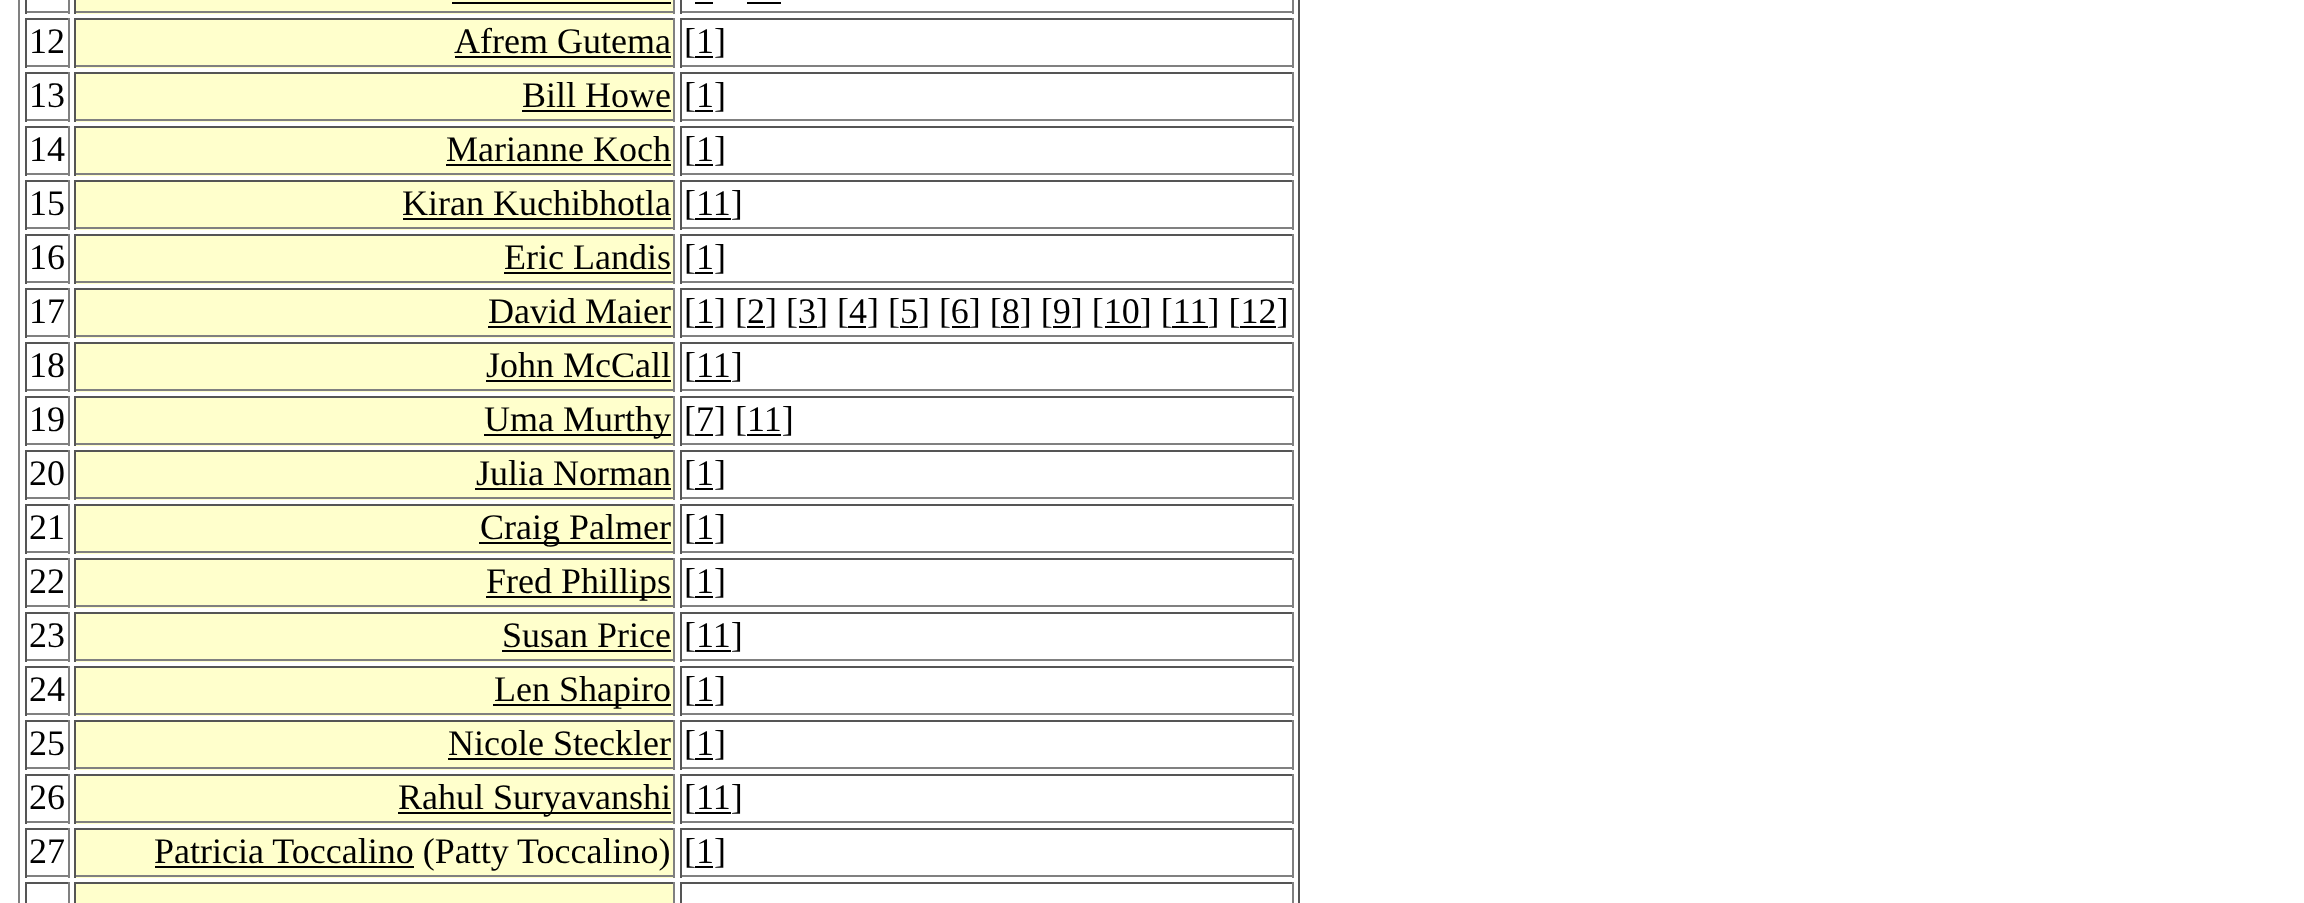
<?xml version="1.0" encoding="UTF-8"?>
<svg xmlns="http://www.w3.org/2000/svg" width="2304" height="903">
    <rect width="100%" height="100%" fill="#FFFFFF"/>
    <rect x="1298" y="0" width="2" height="903" fill="#555555"/>
    <rect x="18" y="0" width="2" height="903" fill="#808080"/>
    <rect x="68" y="0" width="2" height="14" fill="#808080"/>
    <rect x="25" y="11" width="45" height="2" fill="#808080"/>
    <rect x="25" y="0" width="2" height="14" fill="#555555"/>
    <rect x="76" y="0" width="597" height="14" fill="#FFFFCC"/>
    <rect x="673" y="0" width="2" height="14" fill="#808080"/>
    <rect x="74" y="11" width="601" height="2" fill="#808080"/>
    <rect x="74" y="0" width="2" height="14" fill="#555555"/>
    <rect x="452" y="2" width="219" height="2" fill="#000000"/>
    <rect x="1292" y="0" width="2" height="14" fill="#808080"/>
    <rect x="680" y="11" width="614" height="2" fill="#808080"/>
    <rect x="680" y="0" width="2" height="14" fill="#555555"/>
    <rect x="695" y="2" width="18" height="2" fill="#000000"/>
    <rect x="747" y="2" width="34" height="2" fill="#000000"/>
    <rect x="25" y="18" width="45" height="2" fill="#555555"/>
    <rect x="68" y="18" width="2" height="50" fill="#808080"/>
    <rect x="25" y="65" width="45" height="2" fill="#808080"/>
    <rect x="25" y="18" width="2" height="50" fill="#555555"/>
    <text x="29" y="53" font-family="Liberation Serif" font-size="36" fill="#000000">12</text>
    <rect x="76" y="20" width="597" height="48" fill="#FFFFCC"/>
    <rect x="74" y="18" width="601" height="2" fill="#555555"/>
    <rect x="673" y="18" width="2" height="50" fill="#808080"/>
    <rect x="74" y="65" width="601" height="2" fill="#808080"/>
    <rect x="74" y="18" width="2" height="50" fill="#555555"/>
    <text x="454" y="53" font-family="Liberation Serif" font-size="36" fill="#000000">Afrem Gutema</text>
    <rect x="455" y="56" width="216" height="2" fill="#000000"/>
    <rect x="680" y="18" width="614" height="2" fill="#555555"/>
    <rect x="1292" y="18" width="2" height="50" fill="#808080"/>
    <rect x="680" y="65" width="614" height="2" fill="#808080"/>
    <rect x="680" y="18" width="2" height="50" fill="#555555"/>
    <text x="684" y="53" font-family="Liberation Serif" font-size="36" fill="#000000">[1]</text>
    <rect x="695" y="56" width="18" height="2" fill="#000000"/>
    <rect x="25" y="72" width="45" height="2" fill="#555555"/>
    <rect x="68" y="72" width="2" height="50" fill="#808080"/>
    <rect x="25" y="119" width="45" height="2" fill="#808080"/>
    <rect x="25" y="72" width="2" height="50" fill="#555555"/>
    <text x="29" y="107" font-family="Liberation Serif" font-size="36" fill="#000000">13</text>
    <rect x="76" y="74" width="597" height="48" fill="#FFFFCC"/>
    <rect x="74" y="72" width="601" height="2" fill="#555555"/>
    <rect x="673" y="72" width="2" height="50" fill="#808080"/>
    <rect x="74" y="119" width="601" height="2" fill="#808080"/>
    <rect x="74" y="72" width="2" height="50" fill="#555555"/>
    <text x="522" y="107" font-family="Liberation Serif" font-size="36" fill="#000000">Bill Howe</text>
    <rect x="522" y="110" width="149" height="2" fill="#000000"/>
    <rect x="680" y="72" width="614" height="2" fill="#555555"/>
    <rect x="1292" y="72" width="2" height="50" fill="#808080"/>
    <rect x="680" y="119" width="614" height="2" fill="#808080"/>
    <rect x="680" y="72" width="2" height="50" fill="#555555"/>
    <text x="684" y="107" font-family="Liberation Serif" font-size="36" fill="#000000">[1]</text>
    <rect x="695" y="110" width="18" height="2" fill="#000000"/>
    <rect x="25" y="126" width="45" height="2" fill="#555555"/>
    <rect x="68" y="126" width="2" height="50" fill="#808080"/>
    <rect x="25" y="173" width="45" height="2" fill="#808080"/>
    <rect x="25" y="126" width="2" height="50" fill="#555555"/>
    <text x="29" y="161" font-family="Liberation Serif" font-size="36" fill="#000000">14</text>
    <rect x="76" y="128" width="597" height="48" fill="#FFFFCC"/>
    <rect x="74" y="126" width="601" height="2" fill="#555555"/>
    <rect x="673" y="126" width="2" height="50" fill="#808080"/>
    <rect x="74" y="173" width="601" height="2" fill="#808080"/>
    <rect x="74" y="126" width="2" height="50" fill="#555555"/>
    <text x="446" y="161" font-family="Liberation Serif" font-size="36" fill="#000000">Marianne Koch</text>
    <rect x="446" y="164" width="225" height="2" fill="#000000"/>
    <rect x="680" y="126" width="614" height="2" fill="#555555"/>
    <rect x="1292" y="126" width="2" height="50" fill="#808080"/>
    <rect x="680" y="173" width="614" height="2" fill="#808080"/>
    <rect x="680" y="126" width="2" height="50" fill="#555555"/>
    <text x="684" y="161" font-family="Liberation Serif" font-size="36" fill="#000000">[1]</text>
    <rect x="695" y="164" width="18" height="2" fill="#000000"/>
    <rect x="25" y="180" width="45" height="2" fill="#555555"/>
    <rect x="68" y="180" width="2" height="50" fill="#808080"/>
    <rect x="25" y="227" width="45" height="2" fill="#808080"/>
    <rect x="25" y="180" width="2" height="50" fill="#555555"/>
    <text x="29" y="215" font-family="Liberation Serif" font-size="36" fill="#000000">15</text>
    <rect x="76" y="182" width="597" height="48" fill="#FFFFCC"/>
    <rect x="74" y="180" width="601" height="2" fill="#555555"/>
    <rect x="673" y="180" width="2" height="50" fill="#808080"/>
    <rect x="74" y="227" width="601" height="2" fill="#808080"/>
    <rect x="74" y="180" width="2" height="50" fill="#555555"/>
    <text x="402" y="215" font-family="Liberation Serif" font-size="36" fill="#000000">Kiran Kuchibhotla</text>
    <rect x="403" y="218" width="268" height="2" fill="#000000"/>
    <rect x="680" y="180" width="614" height="2" fill="#555555"/>
    <rect x="1292" y="180" width="2" height="50" fill="#808080"/>
    <rect x="680" y="227" width="614" height="2" fill="#808080"/>
    <rect x="680" y="180" width="2" height="50" fill="#555555"/>
    <text x="684" y="215" font-family="Liberation Serif" font-size="36" fill="#000000">[11]</text>
    <rect x="695" y="218" width="36" height="2" fill="#000000"/>
    <rect x="25" y="234" width="45" height="2" fill="#555555"/>
    <rect x="68" y="234" width="2" height="50" fill="#808080"/>
    <rect x="25" y="281" width="45" height="2" fill="#808080"/>
    <rect x="25" y="234" width="2" height="50" fill="#555555"/>
    <text x="29" y="269" font-family="Liberation Serif" font-size="36" fill="#000000">16</text>
    <rect x="76" y="236" width="597" height="48" fill="#FFFFCC"/>
    <rect x="74" y="234" width="601" height="2" fill="#555555"/>
    <rect x="673" y="234" width="2" height="50" fill="#808080"/>
    <rect x="74" y="281" width="601" height="2" fill="#808080"/>
    <rect x="74" y="234" width="2" height="50" fill="#555555"/>
    <text x="504" y="269" font-family="Liberation Serif" font-size="36" fill="#000000">Eric Landis</text>
    <rect x="504" y="272" width="167" height="2" fill="#000000"/>
    <rect x="680" y="234" width="614" height="2" fill="#555555"/>
    <rect x="1292" y="234" width="2" height="50" fill="#808080"/>
    <rect x="680" y="281" width="614" height="2" fill="#808080"/>
    <rect x="680" y="234" width="2" height="50" fill="#555555"/>
    <text x="684" y="269" font-family="Liberation Serif" font-size="36" fill="#000000">[1]</text>
    <rect x="695" y="272" width="18" height="2" fill="#000000"/>
    <rect x="25" y="288" width="45" height="2" fill="#555555"/>
    <rect x="68" y="288" width="2" height="50" fill="#808080"/>
    <rect x="25" y="335" width="45" height="2" fill="#808080"/>
    <rect x="25" y="288" width="2" height="50" fill="#555555"/>
    <text x="29" y="323" font-family="Liberation Serif" font-size="36" fill="#000000">17</text>
    <rect x="76" y="290" width="597" height="48" fill="#FFFFCC"/>
    <rect x="74" y="288" width="601" height="2" fill="#555555"/>
    <rect x="673" y="288" width="2" height="50" fill="#808080"/>
    <rect x="74" y="335" width="601" height="2" fill="#808080"/>
    <rect x="74" y="288" width="2" height="50" fill="#555555"/>
    <text x="488" y="323" font-family="Liberation Serif" font-size="36" fill="#000000">David Maier</text>
    <rect x="488" y="326" width="183" height="2" fill="#000000"/>
    <rect x="680" y="288" width="614" height="2" fill="#555555"/>
    <rect x="1292" y="288" width="2" height="50" fill="#808080"/>
    <rect x="680" y="335" width="614" height="2" fill="#808080"/>
    <rect x="680" y="288" width="2" height="50" fill="#555555"/>
    <text x="684" y="323" font-family="Liberation Serif" font-size="36" fill="#000000">[1] [2] [3] [4] [5] [6] [8] [9] [10] [11] [12]</text>
    <rect x="695" y="326" width="18" height="2" fill="#000000"/>
    <rect x="747" y="326" width="18" height="2" fill="#000000"/>
    <rect x="799" y="326" width="18" height="2" fill="#000000"/>
    <rect x="848" y="326" width="18" height="2" fill="#000000"/>
    <rect x="900" y="326" width="18" height="2" fill="#000000"/>
    <rect x="952" y="326" width="18" height="2" fill="#000000"/>
    <rect x="1001" y="326" width="18" height="2" fill="#000000"/>
    <rect x="1053" y="326" width="18" height="2" fill="#000000"/>
    <rect x="1105" y="326" width="36" height="2" fill="#000000"/>
    <rect x="1172" y="326" width="36" height="2" fill="#000000"/>
    <rect x="1240" y="326" width="36" height="2" fill="#000000"/>
    <rect x="25" y="342" width="45" height="2" fill="#555555"/>
    <rect x="68" y="342" width="2" height="50" fill="#808080"/>
    <rect x="25" y="389" width="45" height="2" fill="#808080"/>
    <rect x="25" y="342" width="2" height="50" fill="#555555"/>
    <text x="29" y="377" font-family="Liberation Serif" font-size="36" fill="#000000">18</text>
    <rect x="76" y="344" width="597" height="48" fill="#FFFFCC"/>
    <rect x="74" y="342" width="601" height="2" fill="#555555"/>
    <rect x="673" y="342" width="2" height="50" fill="#808080"/>
    <rect x="74" y="389" width="601" height="2" fill="#808080"/>
    <rect x="74" y="342" width="2" height="50" fill="#555555"/>
    <text x="486" y="377" font-family="Liberation Serif" font-size="36" fill="#000000">John McCall</text>
    <rect x="486" y="380" width="185" height="2" fill="#000000"/>
    <rect x="680" y="342" width="614" height="2" fill="#555555"/>
    <rect x="1292" y="342" width="2" height="50" fill="#808080"/>
    <rect x="680" y="389" width="614" height="2" fill="#808080"/>
    <rect x="680" y="342" width="2" height="50" fill="#555555"/>
    <text x="684" y="377" font-family="Liberation Serif" font-size="36" fill="#000000">[11]</text>
    <rect x="695" y="380" width="36" height="2" fill="#000000"/>
    <rect x="25" y="396" width="45" height="2" fill="#555555"/>
    <rect x="68" y="396" width="2" height="50" fill="#808080"/>
    <rect x="25" y="443" width="45" height="2" fill="#808080"/>
    <rect x="25" y="396" width="2" height="50" fill="#555555"/>
    <text x="29" y="431" font-family="Liberation Serif" font-size="36" fill="#000000">19</text>
    <rect x="76" y="398" width="597" height="48" fill="#FFFFCC"/>
    <rect x="74" y="396" width="601" height="2" fill="#555555"/>
    <rect x="673" y="396" width="2" height="50" fill="#808080"/>
    <rect x="74" y="443" width="601" height="2" fill="#808080"/>
    <rect x="74" y="396" width="2" height="50" fill="#555555"/>
    <rect x="484" y="434" width="187" height="2" fill="#000000"/>
    <text x="484" y="431" font-family="Liberation Serif" font-size="36" fill="#000000">Uma Murthy</text>
    <rect x="680" y="396" width="614" height="2" fill="#555555"/>
    <rect x="1292" y="396" width="2" height="50" fill="#808080"/>
    <rect x="680" y="443" width="614" height="2" fill="#808080"/>
    <rect x="680" y="396" width="2" height="50" fill="#555555"/>
    <text x="684" y="431" font-family="Liberation Serif" font-size="36" fill="#000000">[7] [11]</text>
    <rect x="695" y="434" width="18" height="2" fill="#000000"/>
    <rect x="747" y="434" width="34" height="2" fill="#000000"/>
    <rect x="25" y="450" width="45" height="2" fill="#555555"/>
    <rect x="68" y="450" width="2" height="50" fill="#808080"/>
    <rect x="25" y="497" width="45" height="2" fill="#808080"/>
    <rect x="25" y="450" width="2" height="50" fill="#555555"/>
    <text x="29" y="485" font-family="Liberation Serif" font-size="36" fill="#000000">20</text>
    <rect x="76" y="452" width="597" height="48" fill="#FFFFCC"/>
    <rect x="74" y="450" width="601" height="2" fill="#555555"/>
    <rect x="673" y="450" width="2" height="50" fill="#808080"/>
    <rect x="74" y="497" width="601" height="2" fill="#808080"/>
    <rect x="74" y="450" width="2" height="50" fill="#555555"/>
    <text x="476" y="485" font-family="Liberation Serif" font-size="36" fill="#000000">Julia Norman</text>
    <rect x="475" y="488" width="196" height="2" fill="#000000"/>
    <rect x="680" y="450" width="614" height="2" fill="#555555"/>
    <rect x="1292" y="450" width="2" height="50" fill="#808080"/>
    <rect x="680" y="497" width="614" height="2" fill="#808080"/>
    <rect x="680" y="450" width="2" height="50" fill="#555555"/>
    <text x="684" y="485" font-family="Liberation Serif" font-size="36" fill="#000000">[1]</text>
    <rect x="695" y="488" width="18" height="2" fill="#000000"/>
    <rect x="25" y="504" width="45" height="2" fill="#555555"/>
    <rect x="68" y="504" width="2" height="50" fill="#808080"/>
    <rect x="25" y="551" width="45" height="2" fill="#808080"/>
    <rect x="25" y="504" width="2" height="50" fill="#555555"/>
    <text x="29" y="539" font-family="Liberation Serif" font-size="36" fill="#000000">21</text>
    <rect x="76" y="506" width="597" height="48" fill="#FFFFCC"/>
    <rect x="74" y="504" width="601" height="2" fill="#555555"/>
    <rect x="673" y="504" width="2" height="50" fill="#808080"/>
    <rect x="74" y="551" width="601" height="2" fill="#808080"/>
    <rect x="74" y="504" width="2" height="50" fill="#555555"/>
    <rect x="479" y="542" width="192" height="2" fill="#000000"/>
    <text x="480" y="539" font-family="Liberation Serif" font-size="36" fill="#000000">Craig Palmer</text>
    <rect x="680" y="504" width="614" height="2" fill="#555555"/>
    <rect x="1292" y="504" width="2" height="50" fill="#808080"/>
    <rect x="680" y="551" width="614" height="2" fill="#808080"/>
    <rect x="680" y="504" width="2" height="50" fill="#555555"/>
    <text x="684" y="539" font-family="Liberation Serif" font-size="36" fill="#000000">[1]</text>
    <rect x="695" y="542" width="18" height="2" fill="#000000"/>
    <rect x="25" y="558" width="45" height="2" fill="#555555"/>
    <rect x="68" y="558" width="2" height="50" fill="#808080"/>
    <rect x="25" y="605" width="45" height="2" fill="#808080"/>
    <rect x="25" y="558" width="2" height="50" fill="#555555"/>
    <text x="29" y="593" font-family="Liberation Serif" font-size="36" fill="#000000">22</text>
    <rect x="76" y="560" width="597" height="48" fill="#FFFFCC"/>
    <rect x="74" y="558" width="601" height="2" fill="#555555"/>
    <rect x="673" y="558" width="2" height="50" fill="#808080"/>
    <rect x="74" y="605" width="601" height="2" fill="#808080"/>
    <rect x="74" y="558" width="2" height="50" fill="#555555"/>
    <rect x="486" y="596" width="185" height="2" fill="#000000"/>
    <text x="486" y="593" font-family="Liberation Serif" font-size="36" fill="#000000">Fred Phillips</text>
    <rect x="680" y="558" width="614" height="2" fill="#555555"/>
    <rect x="1292" y="558" width="2" height="50" fill="#808080"/>
    <rect x="680" y="605" width="614" height="2" fill="#808080"/>
    <rect x="680" y="558" width="2" height="50" fill="#555555"/>
    <text x="684" y="593" font-family="Liberation Serif" font-size="36" fill="#000000">[1]</text>
    <rect x="695" y="596" width="18" height="2" fill="#000000"/>
    <rect x="25" y="612" width="45" height="2" fill="#555555"/>
    <rect x="68" y="612" width="2" height="50" fill="#808080"/>
    <rect x="25" y="659" width="45" height="2" fill="#808080"/>
    <rect x="25" y="612" width="2" height="50" fill="#555555"/>
    <text x="29" y="647" font-family="Liberation Serif" font-size="36" fill="#000000">23</text>
    <rect x="76" y="614" width="597" height="48" fill="#FFFFCC"/>
    <rect x="74" y="612" width="601" height="2" fill="#555555"/>
    <rect x="673" y="612" width="2" height="50" fill="#808080"/>
    <rect x="74" y="659" width="601" height="2" fill="#808080"/>
    <rect x="74" y="612" width="2" height="50" fill="#555555"/>
    <text x="502" y="647" font-family="Liberation Serif" font-size="36" fill="#000000">Susan Price</text>
    <rect x="502" y="650" width="169" height="2" fill="#000000"/>
    <rect x="680" y="612" width="614" height="2" fill="#555555"/>
    <rect x="1292" y="612" width="2" height="50" fill="#808080"/>
    <rect x="680" y="659" width="614" height="2" fill="#808080"/>
    <rect x="680" y="612" width="2" height="50" fill="#555555"/>
    <text x="684" y="647" font-family="Liberation Serif" font-size="36" fill="#000000">[11]</text>
    <rect x="695" y="650" width="36" height="2" fill="#000000"/>
    <rect x="25" y="666" width="45" height="2" fill="#555555"/>
    <rect x="68" y="666" width="2" height="50" fill="#808080"/>
    <rect x="25" y="713" width="45" height="2" fill="#808080"/>
    <rect x="25" y="666" width="2" height="50" fill="#555555"/>
    <text x="29" y="701" font-family="Liberation Serif" font-size="36" fill="#000000">24</text>
    <rect x="76" y="668" width="597" height="48" fill="#FFFFCC"/>
    <rect x="74" y="666" width="601" height="2" fill="#555555"/>
    <rect x="673" y="666" width="2" height="50" fill="#808080"/>
    <rect x="74" y="713" width="601" height="2" fill="#808080"/>
    <rect x="74" y="666" width="2" height="50" fill="#555555"/>
    <rect x="493" y="704" width="178" height="2" fill="#000000"/>
    <text x="494" y="701" font-family="Liberation Serif" font-size="36" fill="#000000">Len Shapiro</text>
    <rect x="680" y="666" width="614" height="2" fill="#555555"/>
    <rect x="1292" y="666" width="2" height="50" fill="#808080"/>
    <rect x="680" y="713" width="614" height="2" fill="#808080"/>
    <rect x="680" y="666" width="2" height="50" fill="#555555"/>
    <text x="684" y="701" font-family="Liberation Serif" font-size="36" fill="#000000">[1]</text>
    <rect x="695" y="704" width="18" height="2" fill="#000000"/>
    <rect x="25" y="720" width="45" height="2" fill="#555555"/>
    <rect x="68" y="720" width="2" height="50" fill="#808080"/>
    <rect x="25" y="767" width="45" height="2" fill="#808080"/>
    <rect x="25" y="720" width="2" height="50" fill="#555555"/>
    <text x="29" y="755" font-family="Liberation Serif" font-size="36" fill="#000000">25</text>
    <rect x="76" y="722" width="597" height="48" fill="#FFFFCC"/>
    <rect x="74" y="720" width="601" height="2" fill="#555555"/>
    <rect x="673" y="720" width="2" height="50" fill="#808080"/>
    <rect x="74" y="767" width="601" height="2" fill="#808080"/>
    <rect x="74" y="720" width="2" height="50" fill="#555555"/>
    <text x="448" y="755" font-family="Liberation Serif" font-size="36" fill="#000000">Nicole Steckler</text>
    <rect x="448" y="758" width="223" height="2" fill="#000000"/>
    <rect x="680" y="720" width="614" height="2" fill="#555555"/>
    <rect x="1292" y="720" width="2" height="50" fill="#808080"/>
    <rect x="680" y="767" width="614" height="2" fill="#808080"/>
    <rect x="680" y="720" width="2" height="50" fill="#555555"/>
    <text x="684" y="755" font-family="Liberation Serif" font-size="36" fill="#000000">[1]</text>
    <rect x="695" y="758" width="18" height="2" fill="#000000"/>
    <rect x="25" y="774" width="45" height="2" fill="#555555"/>
    <rect x="68" y="774" width="2" height="50" fill="#808080"/>
    <rect x="25" y="821" width="45" height="2" fill="#808080"/>
    <rect x="25" y="774" width="2" height="50" fill="#555555"/>
    <text x="29" y="809" font-family="Liberation Serif" font-size="36" fill="#000000">26</text>
    <rect x="76" y="776" width="597" height="48" fill="#FFFFCC"/>
    <rect x="74" y="774" width="601" height="2" fill="#555555"/>
    <rect x="673" y="774" width="2" height="50" fill="#808080"/>
    <rect x="74" y="821" width="601" height="2" fill="#808080"/>
    <rect x="74" y="774" width="2" height="50" fill="#555555"/>
    <rect x="398" y="812" width="273" height="2" fill="#000000"/>
    <text x="398" y="809" font-family="Liberation Serif" font-size="36" fill="#000000">Rahul Suryavanshi</text>
    <rect x="680" y="774" width="614" height="2" fill="#555555"/>
    <rect x="1292" y="774" width="2" height="50" fill="#808080"/>
    <rect x="680" y="821" width="614" height="2" fill="#808080"/>
    <rect x="680" y="774" width="2" height="50" fill="#555555"/>
    <text x="684" y="809" font-family="Liberation Serif" font-size="36" fill="#000000">[11]</text>
    <rect x="695" y="812" width="36" height="2" fill="#000000"/>
    <rect x="25" y="828" width="45" height="2" fill="#555555"/>
    <rect x="68" y="828" width="2" height="50" fill="#808080"/>
    <rect x="25" y="875" width="45" height="2" fill="#808080"/>
    <rect x="25" y="828" width="2" height="50" fill="#555555"/>
    <text x="29" y="863" font-family="Liberation Serif" font-size="36" fill="#000000">27</text>
    <rect x="76" y="830" width="597" height="48" fill="#FFFFCC"/>
    <rect x="74" y="828" width="601" height="2" fill="#555555"/>
    <rect x="673" y="828" width="2" height="50" fill="#808080"/>
    <rect x="74" y="875" width="601" height="2" fill="#808080"/>
    <rect x="74" y="828" width="2" height="50" fill="#555555"/>
    <rect x="155" y="866" width="259" height="2" fill="#000000"/>
    <text x="154" y="863" font-family="Liberation Serif" font-size="36" fill="#000000">Patricia Toccalino (Patty Toccalino)</text>
    <rect x="680" y="828" width="614" height="2" fill="#555555"/>
    <rect x="1292" y="828" width="2" height="50" fill="#808080"/>
    <rect x="680" y="875" width="614" height="2" fill="#808080"/>
    <rect x="680" y="828" width="2" height="50" fill="#555555"/>
    <text x="684" y="863" font-family="Liberation Serif" font-size="36" fill="#000000">[1]</text>
    <rect x="695" y="866" width="18" height="2" fill="#000000"/>
    <rect x="25" y="882" width="45" height="2" fill="#555555"/>
    <rect x="68" y="882" width="2" height="21" fill="#808080"/>
    <rect x="25" y="882" width="2" height="21" fill="#555555"/>
    <rect x="76" y="884" width="597" height="19" fill="#FFFFCC"/>
    <rect x="74" y="882" width="601" height="2" fill="#555555"/>
    <rect x="673" y="882" width="2" height="21" fill="#808080"/>
    <rect x="74" y="882" width="2" height="21" fill="#555555"/>
    <rect x="680" y="882" width="614" height="2" fill="#555555"/>
    <rect x="1292" y="882" width="2" height="21" fill="#808080"/>
    <rect x="680" y="882" width="2" height="21" fill="#555555"/>
</svg>
